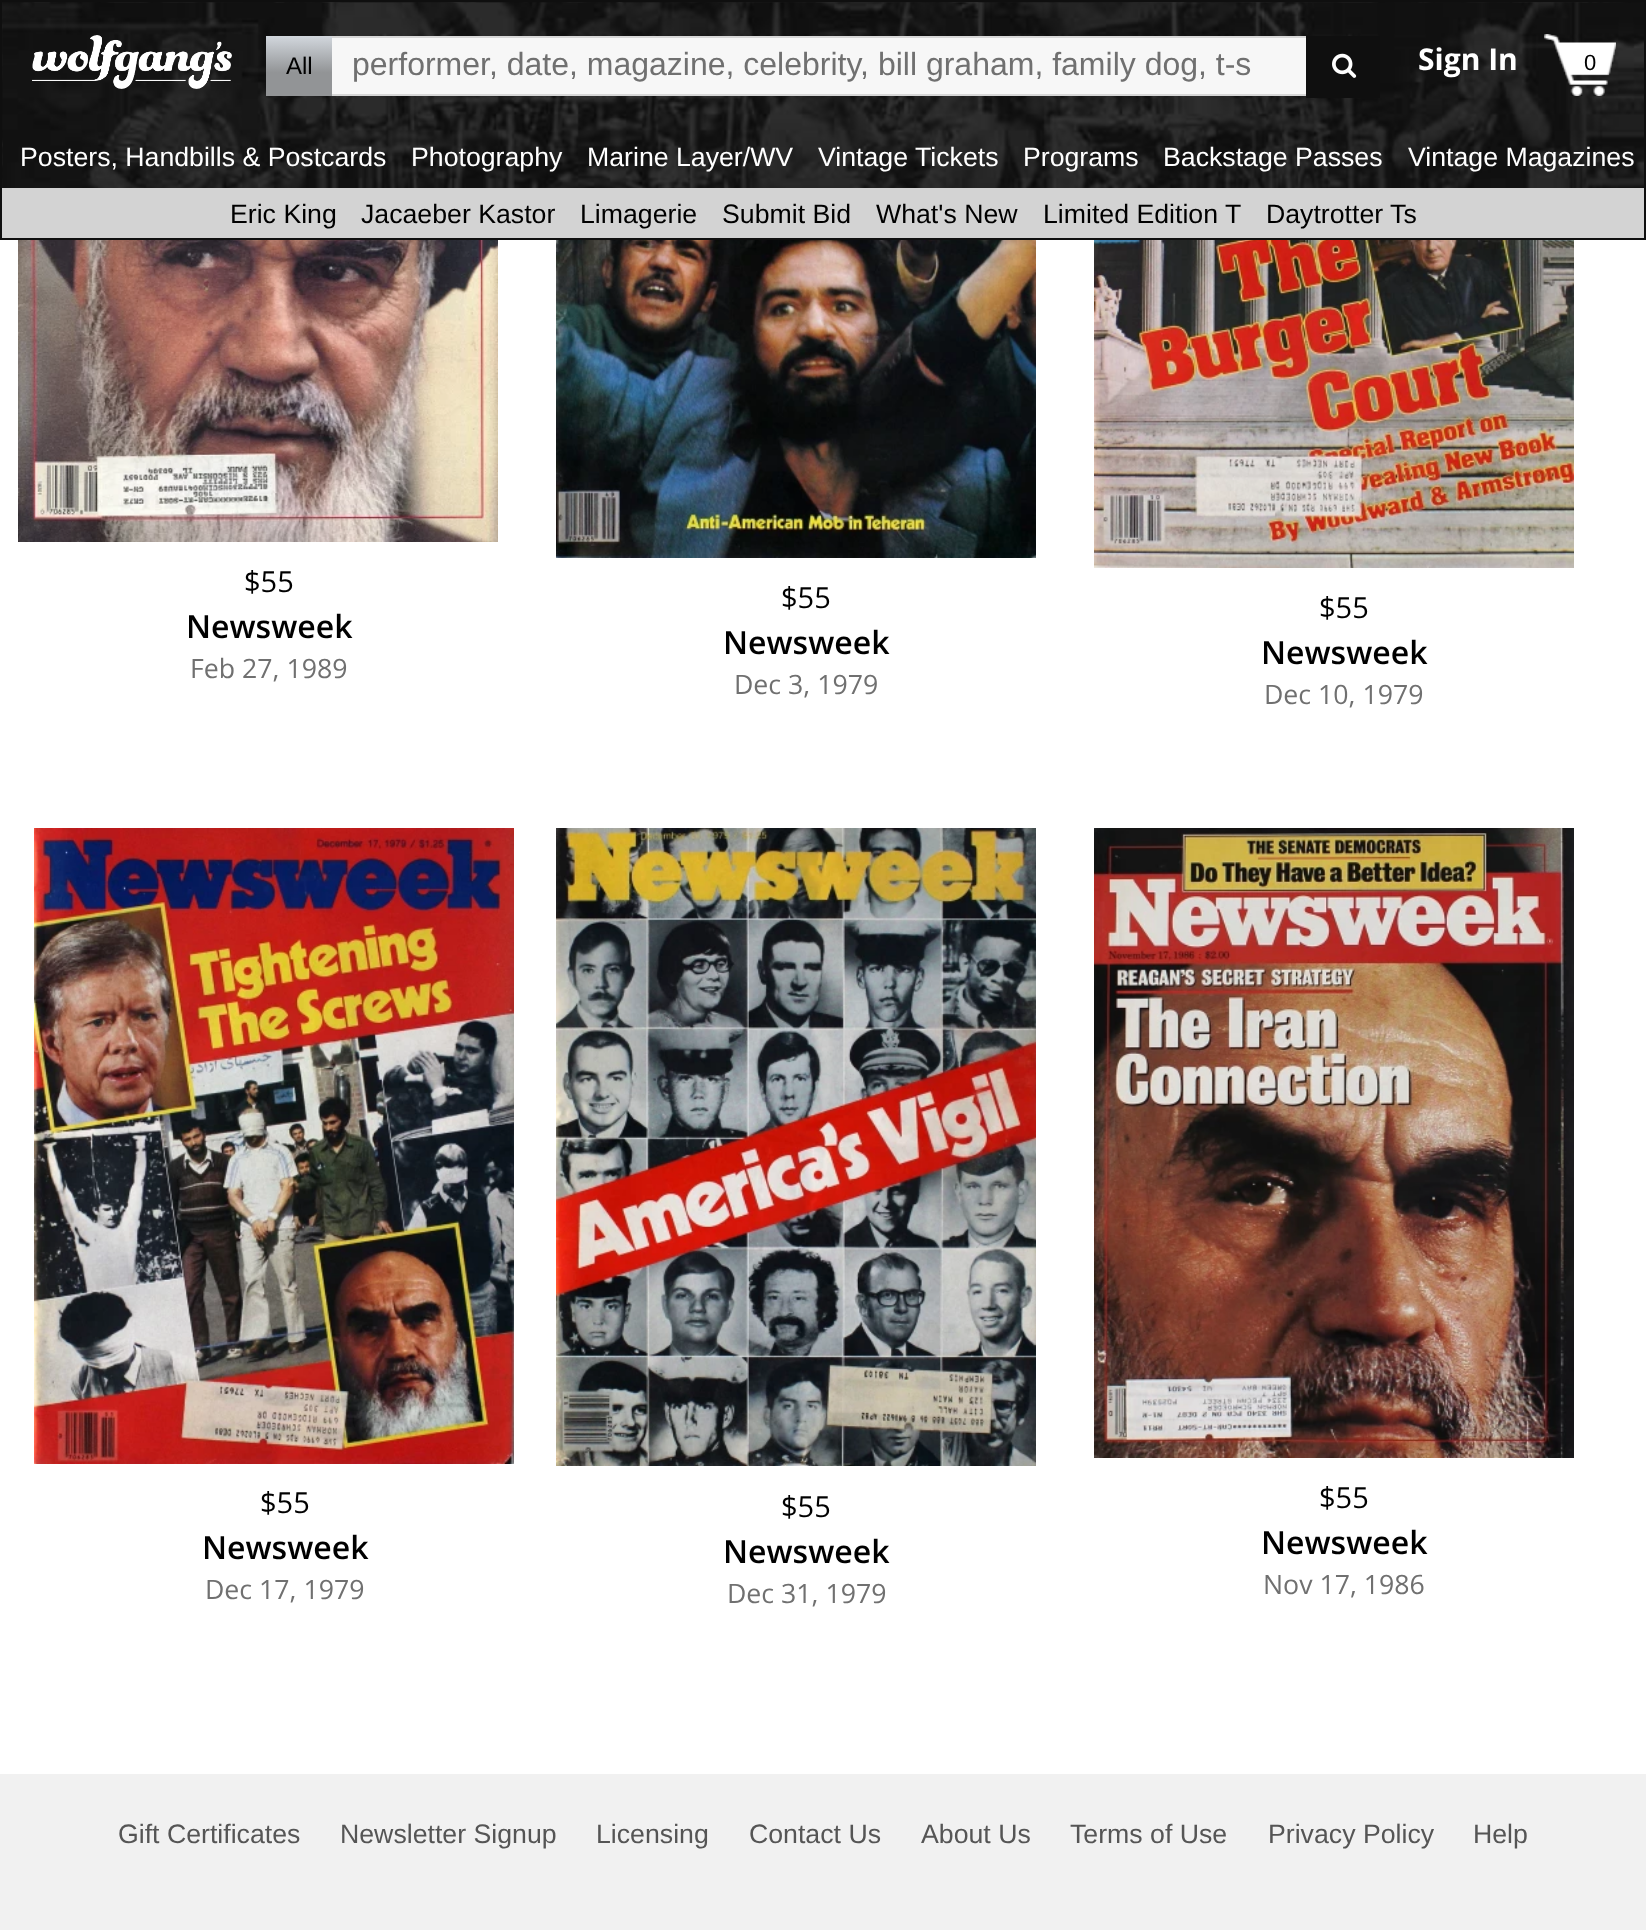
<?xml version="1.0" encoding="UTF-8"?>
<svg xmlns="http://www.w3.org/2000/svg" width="1646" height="1930">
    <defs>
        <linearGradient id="g1" gradientUnits="userSpaceOnUse" x1="299" y1="36" x2="299" y2="96"><stop offset="0" stop-color="#D2D7DD"/><stop offset="0.61" stop-color="#929496"/></linearGradient>
    </defs>
    <rect width="100%" height="100%" fill="#FFFFFF"/>
    <image x="2" y="2" width="1642" height="186" href="img_01.png"/>
    <rect x="1" y="1" width="1644" height="238" fill="none" stroke="#0F0F0F" stroke-width="2"/>
    <image x="32" y="35" width="200" height="54" href="img_02.png"/>
    <rect x="266" y="36" width="66" height="60" fill="url(#g1)"/>
    <text x="286" y="74" font-family="Liberation Sans" font-size="24" fill="#000000">All</text>
    <rect x="332" y="38" width="974" height="56" fill="#F7F7F7"/>
    <rect x="332" y="36" width="974" height="2" fill="#D7D7D7"/>
    <rect x="332" y="94" width="974" height="2" fill="#D7D7D7"/>
    <text x="352" y="75" font-family="Liberation Sans" font-size="32" fill="#707070">performer, date, magazine, celebrity, bill graham, family dog, t-s</text>
    <rect x="1306" y="36" width="74" height="62" fill="#0F0F0F"/>
    <image x="1332" y="53" width="25" height="25" href="img_03.png"/>
    <image x="1544" y="34" width="72" height="62" href="img_04.png"/>
    <text x="1418" y="70" font-family="Open Sans" font-size="30" font-weight="700" fill="#FFFFFF">Sign In</text>
    <text x="1584" y="70" font-family="Liberation Sans" font-size="22" fill="#000000">0</text>
    <text x="20" y="166" font-family="Liberation Sans" font-size="26.7" fill="#FFFFFF">Posters, Handbills &amp; Postcards</text>
    <text x="411" y="166" font-family="Liberation Sans" font-size="26.7" fill="#FFFFFF">Photography</text>
    <text x="587" y="166" font-family="Liberation Sans" font-size="26.7" fill="#FFFFFF">Marine Layer/WV</text>
    <text x="818" y="166" font-family="Liberation Sans" font-size="26.7" fill="#FFFFFF">Vintage Tickets</text>
    <text x="1023" y="166" font-family="Liberation Sans" font-size="26.7" fill="#FFFFFF">Programs</text>
    <text x="1163" y="166" font-family="Liberation Sans" font-size="26.7" fill="#FFFFFF">Backstage Passes</text>
    <text x="1408" y="166" font-family="Liberation Sans" font-size="26.7" fill="#FFFFFF">Vintage Magazines</text>
    <rect x="2" y="188" width="1642" height="50" fill="#D3D3D3"/>
    <text x="230" y="223" font-family="Liberation Sans" font-size="26.7" fill="#000000">Eric King</text>
    <text x="361" y="223" font-family="Liberation Sans" font-size="26.7" fill="#000000">Jacaeber Kastor</text>
    <text x="580" y="223" font-family="Liberation Sans" font-size="26.7" fill="#000000">Limagerie</text>
    <text x="722" y="223" font-family="Liberation Sans" font-size="26.7" fill="#000000">Submit Bid</text>
    <text x="876" y="223" font-family="Liberation Sans" font-size="26.7" fill="#000000">What's New</text>
    <text x="1043" y="223" font-family="Liberation Sans" font-size="26.7" fill="#000000">Limited Edition T</text>
    <text x="1266" y="223" font-family="Liberation Sans" font-size="26.7" fill="#000000">Daytrotter Ts</text>
    <image x="18" y="240" width="480" height="302" href="img_05.png"/>
    <text x="244" y="592" font-family="Open Sans" font-size="29" fill="#000000">$55</text>
    <text x="186" y="638" font-family="Open Sans" font-size="32" font-weight="600" fill="#000000">Newsweek</text>
    <text x="190" y="678" font-family="Open Sans" font-size="26.7" fill="#707070">Feb 27, 1989</text>
    <image x="556" y="240" width="480" height="318" href="img_06.png"/>
    <text x="781" y="608" font-family="Open Sans" font-size="29" fill="#000000">$55</text>
    <text x="723" y="654" font-family="Open Sans" font-size="32" font-weight="600" fill="#000000">Newsweek</text>
    <text x="734" y="694" font-family="Open Sans" font-size="26.7" fill="#707070">Dec 3, 1979</text>
    <image x="1094" y="240" width="480" height="328" href="img_07.png"/>
    <text x="1319" y="618" font-family="Open Sans" font-size="29" fill="#000000">$55</text>
    <text x="1261" y="664" font-family="Open Sans" font-size="32" font-weight="600" fill="#000000">Newsweek</text>
    <text x="1264" y="704" font-family="Open Sans" font-size="26.7" fill="#707070">Dec 10, 1979</text>
    <image x="34" y="828" width="480" height="636" href="img_08.png"/>
    <text x="260" y="1513" font-family="Open Sans" font-size="29" fill="#000000">$55</text>
    <text x="202" y="1559" font-family="Open Sans" font-size="32" font-weight="600" fill="#000000">Newsweek</text>
    <text x="205" y="1599" font-family="Open Sans" font-size="26.7" fill="#707070">Dec 17, 1979</text>
    <image x="556" y="828" width="480" height="638" href="img_09.png"/>
    <text x="781" y="1517" font-family="Open Sans" font-size="29" fill="#000000">$55</text>
    <text x="723" y="1563" font-family="Open Sans" font-size="32" font-weight="600" fill="#000000">Newsweek</text>
    <text x="727" y="1603" font-family="Open Sans" font-size="26.7" fill="#707070">Dec 31, 1979</text>
    <image x="1094" y="828" width="480" height="630" href="img_10.png"/>
    <text x="1319" y="1508" font-family="Open Sans" font-size="29" fill="#000000">$55</text>
    <text x="1261" y="1554" font-family="Open Sans" font-size="32" font-weight="600" fill="#000000">Newsweek</text>
    <text x="1263" y="1594" font-family="Open Sans" font-size="26.7" fill="#707070">Nov 17, 1986</text>
    <rect x="0" y="1774" width="1646" height="156" fill="#F1F1F1"/>
    <text x="118" y="1843" font-family="Liberation Sans" font-size="26.7" fill="#555555">Gift Certificates</text>
    <text x="340" y="1843" font-family="Liberation Sans" font-size="26.7" fill="#555555">Newsletter Signup</text>
    <text x="596" y="1843" font-family="Liberation Sans" font-size="26.7" fill="#555555">Licensing</text>
    <text x="749" y="1843" font-family="Liberation Sans" font-size="26.7" fill="#555555">Contact Us</text>
    <text x="921" y="1843" font-family="Liberation Sans" font-size="26.7" fill="#555555">About Us</text>
    <text x="1070" y="1843" font-family="Liberation Sans" font-size="26.7" fill="#555555">Terms of Use</text>
    <text x="1268" y="1843" font-family="Liberation Sans" font-size="26.7" fill="#555555">Privacy Policy</text>
    <text x="1473" y="1843" font-family="Liberation Sans" font-size="26.7" fill="#555555">Help</text>
</svg>
